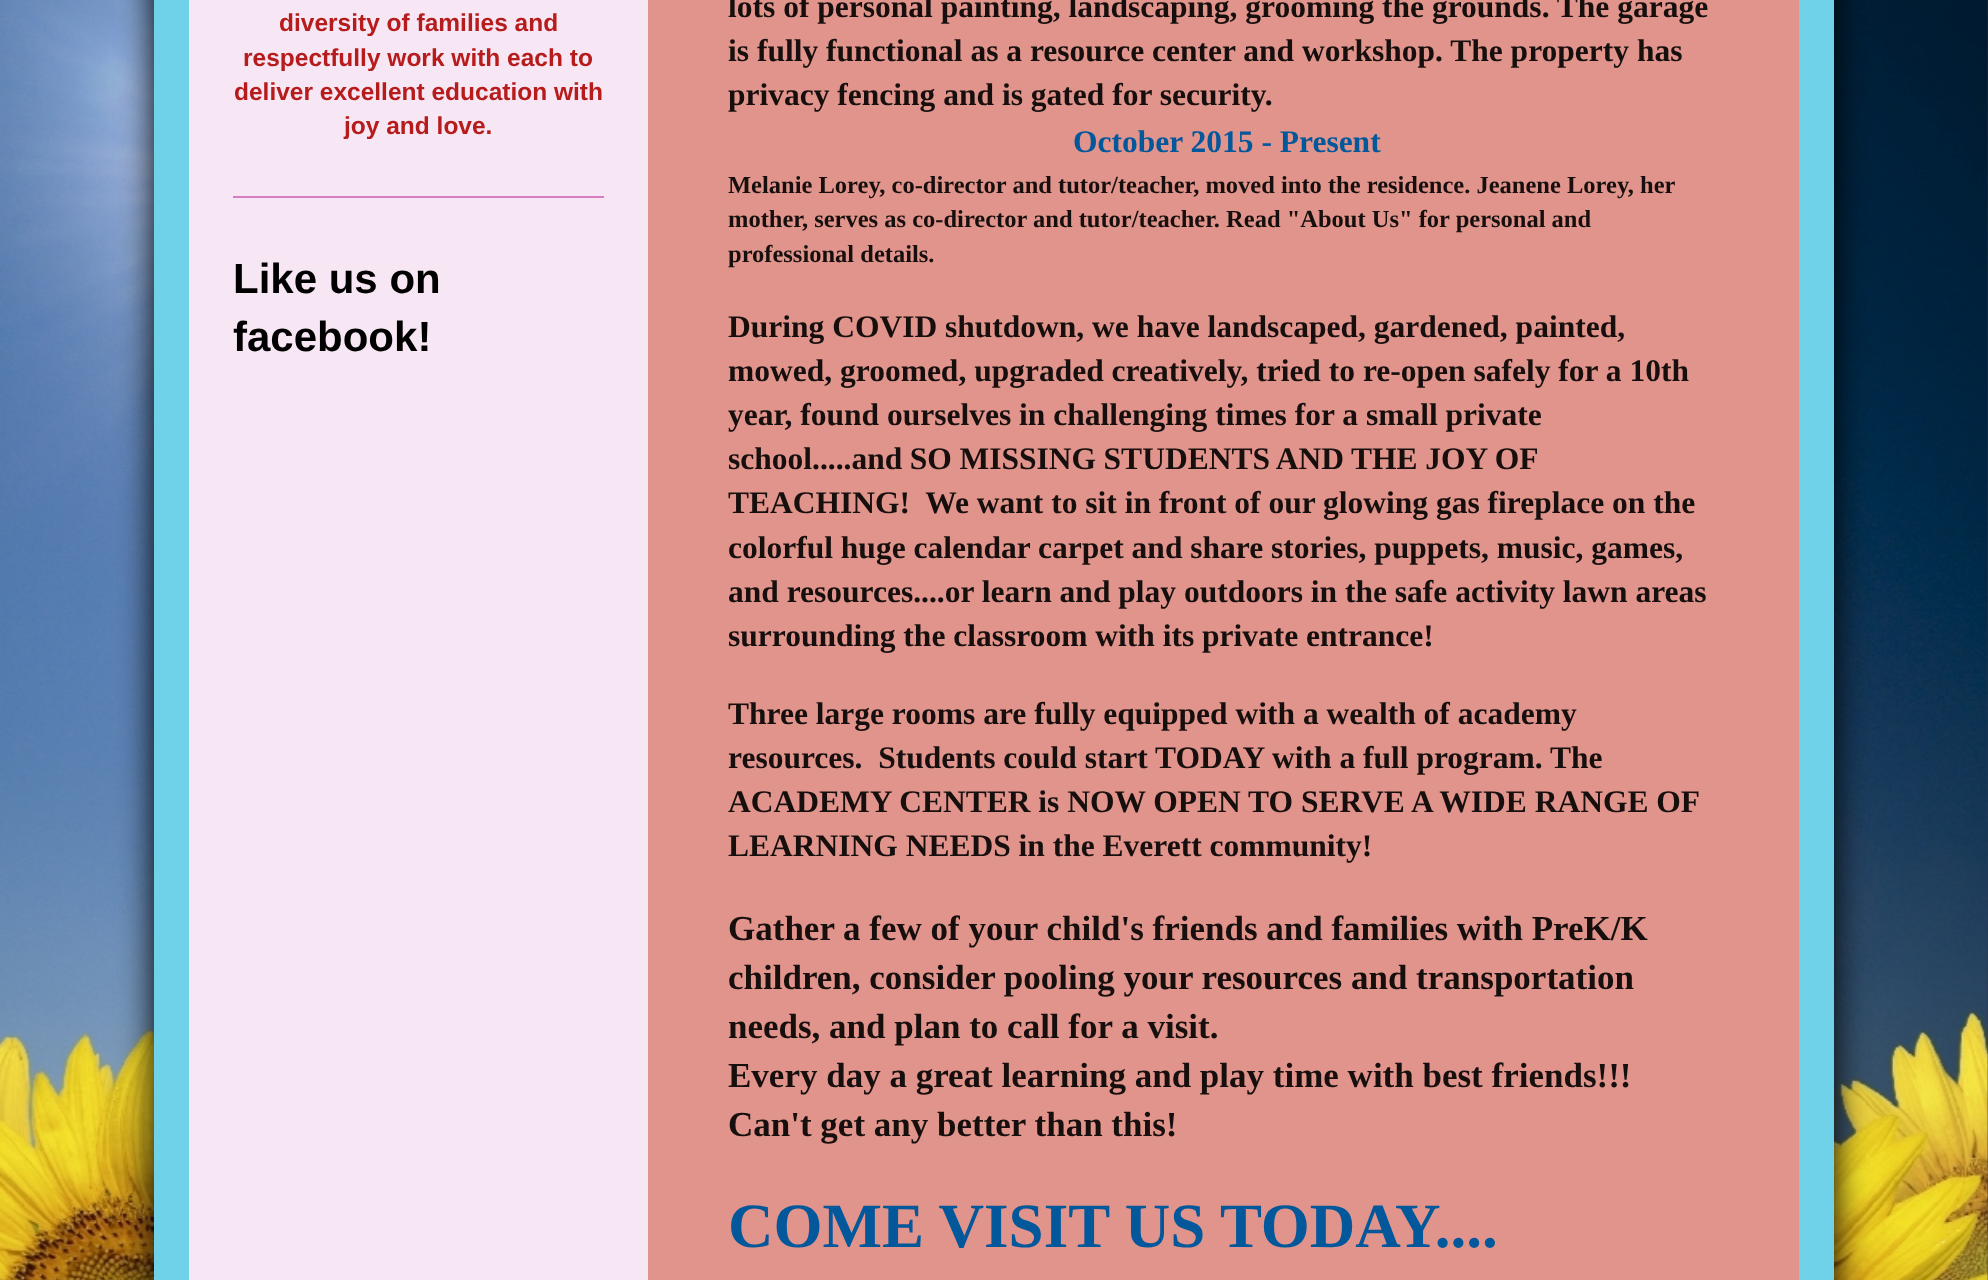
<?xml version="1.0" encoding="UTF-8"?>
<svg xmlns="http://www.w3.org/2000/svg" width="1988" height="1280">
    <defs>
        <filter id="blur1" x="-50%" y="-200%" width="200%" height="500%"><feGaussianBlur stdDeviation="17.5"/></filter>
    </defs>
    <rect width="100%" height="100%" fill="#3C383B"/>
    <image x="0" y="0" width="1988" height="1280" href="img_01.png"/>
    <rect x="154" y="-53" width="1680" height="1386" fill="#000000" filter="url(#blur1)"/>
    <rect x="154" y="0" width="1680" height="1280" fill="#70D2E8"/>
    <rect x="648" y="0" width="1151" height="1280" fill="#E0948B"/>
    <rect x="189" y="0" width="459" height="1280" fill="#F7E6F3"/>
    <text font-family="Liberation Serif" font-size="31.5" font-weight="700" fill="#160F0E">
        <tspan x="728" y="17">lots of personal painting, landscaping, grooming the grounds. The garage</tspan>
        <tspan x="728" y="61">is fully functional as a resource center and workshop. The property has</tspan>
        <tspan x="728" y="105">privacy fencing and is gated for security.</tspan>
    </text>
    <text x="1073" y="152" font-family="Liberation Serif" font-size="31.5" font-weight="700" fill="#03579B">October 2015 - Present</text>
    <text font-family="Liberation Serif" font-size="24.5" font-weight="700" fill="#160F0E">
        <tspan x="728" y="193">Melanie Lorey, co-director and tutor/teacher, moved into the residence. Jeanene Lorey, her</tspan>
        <tspan x="728" y="227">mother, serves as co-director and tutor/teacher. Read "About Us" for personal and</tspan>
        <tspan x="728" y="262">professional details.</tspan>
    </text>
    <text font-family="Liberation Serif" font-size="31.5" font-weight="700" fill="#160F0E" xml:space="preserve"><tspan x="728" y="337">During COVID shutdown, we have landscaped, gardened, painted,</tspan><tspan x="728" y="381">mowed, groomed, upgraded creatively, tried to re-open safely for a 10th</tspan><tspan x="728" y="425">year, found ourselves in challenging times for a small private</tspan><tspan x="728" y="469" word-spacing="-0.25">school.....and SO MISSING STUDENTS AND THE JOY OF</tspan><tspan x="728" y="513">TEACHING!  We want to sit in front of our glowing gas fireplace on the</tspan><tspan x="728" y="558">colorful huge calendar carpet and share stories, puppets, music, games,</tspan><tspan x="728" y="602">and resources....or learn and play outdoors in the safe activity lawn areas</tspan><tspan x="728" y="646">surrounding the classroom with its private entrance!</tspan></text>
    <text font-family="Liberation Serif" font-size="31.5" font-weight="700" fill="#160F0E" xml:space="preserve"><tspan x="728" y="724">Three large rooms are fully equipped with a wealth of academy</tspan><tspan x="728" y="768">resources.  Students could start TODAY with a full program. The</tspan><tspan x="728" y="812">ACADEMY CENTER is NOW OPEN TO SERVE A WIDE RANGE OF</tspan><tspan x="728" y="856">LEARNING NEEDS in the Everett community!</tspan></text>
    <text font-family="Liberation Serif" font-size="35" font-weight="700" fill="#160F0E">
        <tspan x="728" y="940">Gather a few of your child's friends and families with PreK/K</tspan>
        <tspan x="728" y="989">children, consider pooling your resources and transportation</tspan>
        <tspan x="728" y="1038">needs, and plan to call for a visit.</tspan>
        <tspan x="728" y="1087">Every day a great learning and play time with best friends!!!</tspan>
        <tspan x="728" y="1136">Can't get any better than this!</tspan>
    </text>
    <text x="728" y="1247" font-family="Liberation Serif" font-size="63" font-weight="700" fill="#03579B">COME VISIT US TODAY....</text>
    <text x="279" y="31" font-family="Liberation Sans" font-size="24.5" font-weight="700" fill="#B71C1C">diversity of families and</text>
    <text x="243" y="66" font-family="Liberation Sans" font-size="24.5" font-weight="700" fill="#B71C1C">respectfully work with each to</text>
    <text x="234" y="100" font-family="Liberation Sans" font-size="24.5" font-weight="700" fill="#B71C1C">deliver excellent education with</text>
    <text x="344" y="134" font-family="Liberation Sans" font-size="24.5" font-weight="700" fill="#B71C1C">joy and love.</text>
    <rect x="233" y="196" width="371" height="2" fill="#D67EC1"/>
    <text font-family="Liberation Sans" font-size="42" font-weight="700" fill="#000000">
        <tspan x="233" y="293">Like us on</tspan>
        <tspan x="233" y="351">facebook!</tspan>
    </text>
</svg>
